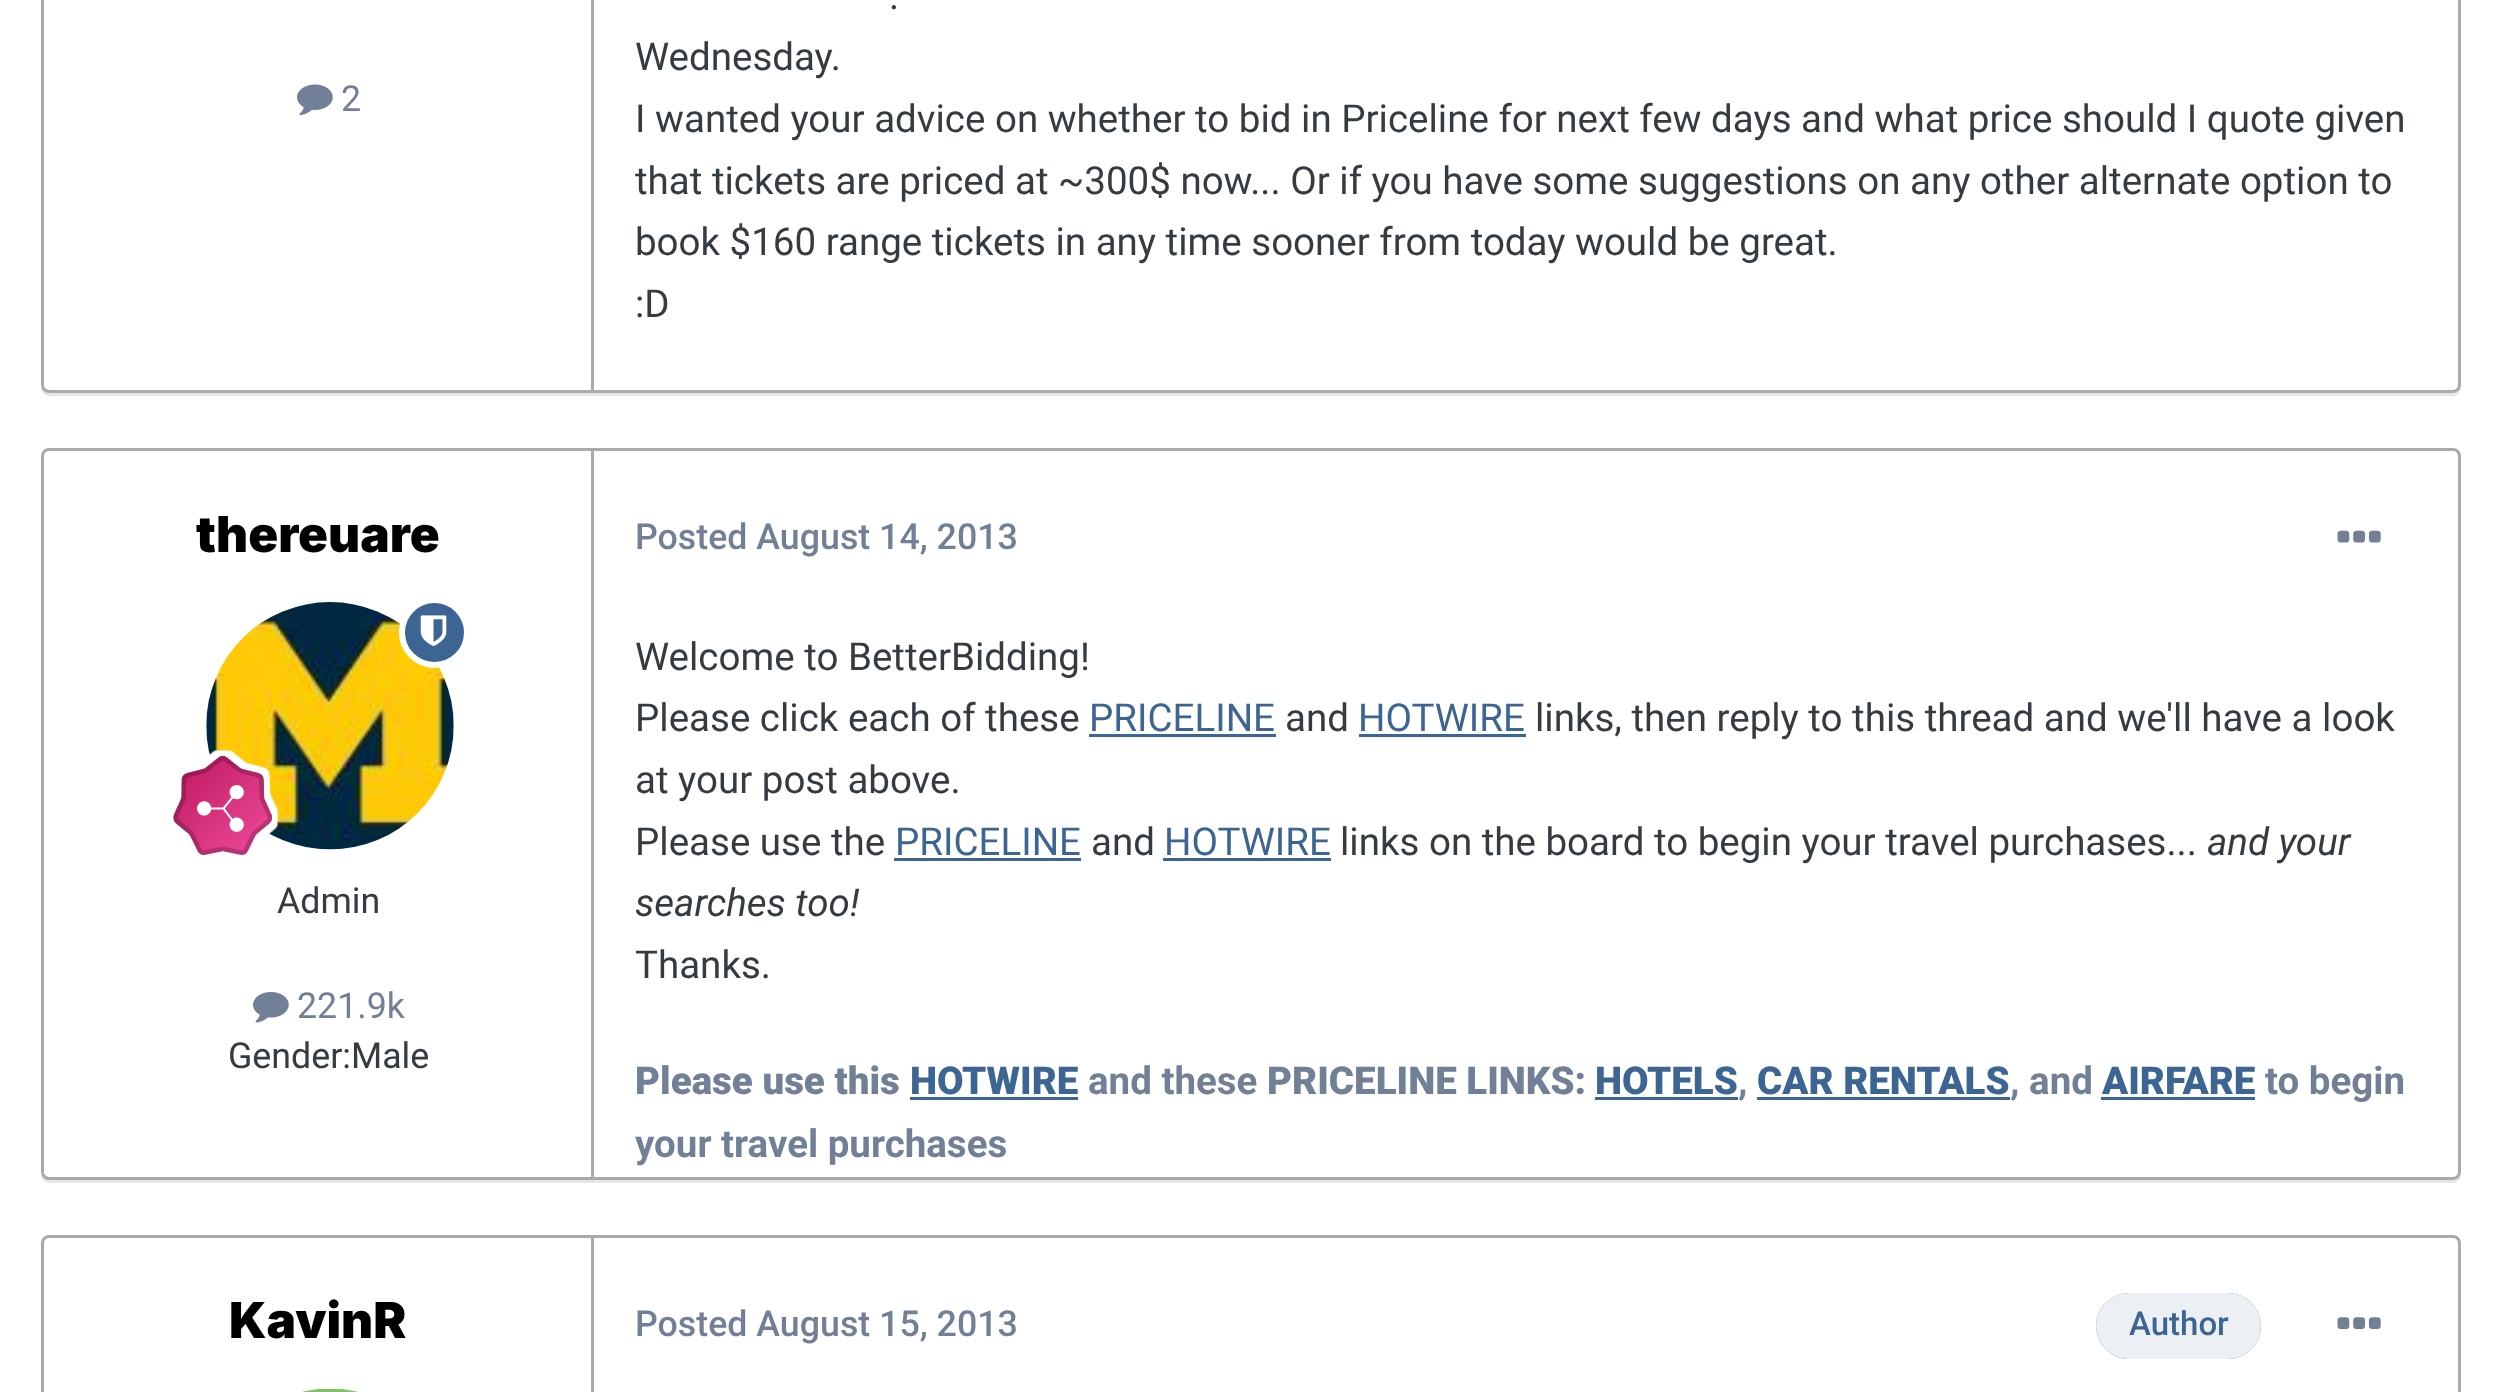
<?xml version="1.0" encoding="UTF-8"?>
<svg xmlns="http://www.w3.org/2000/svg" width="2500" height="1392">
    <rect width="100%" height="100%" fill="#FFFFFF"/>
    <path d="M 41 -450 V 388 C 41 392 45 396 49 396 H 2453 C 2457 396 2461 392 2461 388 V 387 C 2460 391 2457 393 2453 393 H 50 C 45 393 41 390 41 385 Z" fill="#E6E6E6"/>
    <rect x="42.5" y="-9.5" width="2417" height="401" rx="6.5" fill="#FFFFFF" stroke="#AAAAAA" stroke-width="3"/>
    <rect x="591" y="0" width="3" height="391" fill="#AAAAAA"/>
    <image x="297" y="84" width="36" height="32" href="img_01.png"/>
    <text x="341" y="111" font-family="Roboto" font-size="35.75" fill="#718096">2</text>
    <text x="889" y="9" font-family="Roboto" font-size="38.5" fill="#353C41">.</text>
    <text font-family="Roboto" font-size="38.5" fill="#353C41">
        <tspan x="635" y="70">Wednesday.</tspan>
        <tspan x="635" y="132">I wanted your advice on whether to bid in Priceline for next few days and what price should I quote given</tspan>
        <tspan x="635" y="194">that tickets are priced at ~300$ now... Or if you have some suggestions on any other alternate option to</tspan>
        <tspan x="635" y="255">book $160 range tickets in any time sooner from today would be great.</tspan>
        <tspan x="635" y="317">:D</tspan>
    </text>
    <path d="M 41 457 V 1175 C 41 1179 45 1183 49 1183 H 2453 C 2457 1183 2461 1179 2461 1175 V 1174 C 2460 1177 2457 1180 2453 1180 H 50 C 45 1180 41 1176 41 1172 Z" fill="#E6E6E6"/>
    <rect x="42.5" y="449.5" width="2417" height="729" rx="6.5" fill="#FFFFFF" stroke="#AAAAAA" stroke-width="3"/>
    <rect x="591" y="451" width="3" height="726" fill="#AAAAAA"/>
    <text x="196" y="552" font-family="Inter" font-size="49.5" font-weight="900" fill="#000000">thereuare</text>
    <image x="206" y="602" width="248" height="248" href="img_03.png"/>
    <circle cx="434.5" cy="632.5" r="32.5" fill="#3D6594" stroke="#FFFFFF" stroke-width="6"/>
    <image x="420" y="615" width="27" height="31" href="img_02.png"/>
    <image x="173" y="750" width="105" height="105" href="img_04.png"/>
    <text x="277" y="913" font-family="Roboto" font-size="35.75" fill="#353C41">Admin</text>
    <image x="253" y="992" width="36" height="31" href="img_05.png"/>
    <text x="297" y="1018" font-family="Roboto" font-size="35.75" fill="#718096">221.9k</text>
    <text x="228" y="1068" font-family="Roboto" font-size="35.75" fill="#353C41">Gender:Male</text>
    <text x="635" y="549" font-family="Roboto" font-size="35.75" font-weight="500" fill="#718096">Posted August 14, 2013</text>
    <image x="2337" y="530" width="44" height="13" href="img_06.png"/>
    <text font-family="Roboto" font-size="38.5" fill="#353C41">
        <tspan x="635" y="670">Welcome to BetterBidding!</tspan>
        <tspan x="635" y="731">Please click each of these</tspan>
    </text>
    <text x="1089" y="731" font-family="Roboto" font-size="38.5" fill="#3D6594">PRICELINE</text>
    <rect x="1089" y="734" width="187" height="3" fill="#3D6594"/>
    <text x="1285" y="731" font-family="Roboto" font-size="38.5" fill="#353C41">and</text>
    <text x="1358" y="731" font-family="Roboto" font-size="38.5" fill="#3D6594">HOTWIRE</text>
    <rect x="1359" y="734" width="167" height="3" fill="#3D6594"/>
    <text x="1535" y="731" font-family="Roboto" font-size="38.5" fill="#353C41">links, then reply to this thread and we'll have a look</text>
    <text font-family="Roboto" font-size="38.5" fill="#353C41">
        <tspan x="635" y="793">at your post above.</tspan>
        <tspan x="635" y="855">Please use the</tspan>
    </text>
    <text x="895" y="855" font-family="Roboto" font-size="38.5" fill="#3D6594">PRICELINE</text>
    <rect x="894" y="858" width="187" height="3" fill="#3D6594"/>
    <text x="1091" y="855" font-family="Roboto" font-size="38.5" fill="#353C41">and</text>
    <text x="1164" y="855" font-family="Roboto" font-size="38.5" fill="#3D6594">HOTWIRE</text>
    <rect x="1163" y="858" width="168" height="3" fill="#3D6594"/>
    <text x="1340" y="855" font-family="Roboto" font-size="38.5" fill="#353C41">links on the board to begin your travel purchases...</text>
    <text x="2207" y="855" font-family="Roboto" font-size="38.5" font-style="italic" fill="#353C41">and your</text>
    <text x="635" y="916" font-family="Roboto" font-size="38.5" font-style="italic" fill="#353C41">searches too!</text>
    <text x="635" y="978" font-family="Roboto" font-size="38.5" fill="#353C41">Thanks.</text>
    <text x="635" y="1094" font-family="Roboto" font-size="38.5" font-weight="900" fill="#718096">Please use this</text>
    <text x="910" y="1094" font-family="Roboto" font-size="38.5" font-weight="900" fill="#3D6594">HOTWIRE</text>
    <rect x="910" y="1097" width="168" height="3" fill="#3D6594"/>
    <text x="1088" y="1094" font-family="Roboto" font-size="38.5" font-weight="700" fill="#718096">and these</text>
    <text x="1267" y="1094" font-family="Roboto" font-size="38.5" font-weight="900" fill="#718096">PRICELINE LINKS:</text>
    <text x="1595" y="1094" font-family="Roboto" font-size="38.5" font-weight="900" fill="#3D6594">HOTELS</text>
    <text x="1738" y="1094" font-family="Roboto" font-size="38.5" font-weight="700" fill="#718096">,</text>
    <rect x="1595" y="1097" width="143" height="3" fill="#3D6594"/>
    <rect x="1757" y="1097" width="253" height="3" fill="#3D6594"/>
    <text x="1757" y="1094" font-family="Roboto" font-size="38.5" font-weight="900" fill="#3D6594">CAR RENTALS</text>
    <text x="2010" y="1094" font-family="Roboto" font-size="38.5" font-weight="700" fill="#718096">, and</text>
    <text x="2102" y="1094" font-family="Roboto" font-size="38.5" font-weight="900" fill="#3D6594">AIRFARE</text>
    <rect x="2101" y="1097" width="154" height="3" fill="#3D6594"/>
    <text x="2265" y="1094" font-family="Roboto" font-size="38.5" font-weight="700" fill="#718096">to begin</text>
    <text x="635" y="1157" font-family="Roboto" font-size="38.5" font-weight="700" fill="#718096">your travel purchases</text>
    <rect x="42.5" y="1236.5" width="2417" height="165" rx="6.5" fill="none" stroke="#AAAAAA" stroke-width="3"/>
    <rect x="591" y="1238" width="3" height="154" fill="#AAAAAA"/>
    <text x="229" y="1338" font-family="Inter" font-size="49.5" font-weight="900" fill="#000000">KavinR</text>
    <image x="302" y="1389" width="56" height="3" href="img_07.png"/>
    <text x="635" y="1336" font-family="Roboto" font-size="35.75" font-weight="500" fill="#718096">Posted August 15, 2013</text>
    <rect x="2096" y="1293" width="165" height="66" rx="33" fill="#3D6594"/>
    <rect x="2096" y="1293" width="165" height="66" rx="33" fill="#FFFFFF" fill-opacity="0.9"/>
    <text x="2129" y="1335" font-family="Roboto" font-size="33" font-weight="500" fill="#3D6594">Author</text>
    <image x="2337" y="1317" width="44" height="13" href="img_08.png"/>
</svg>
